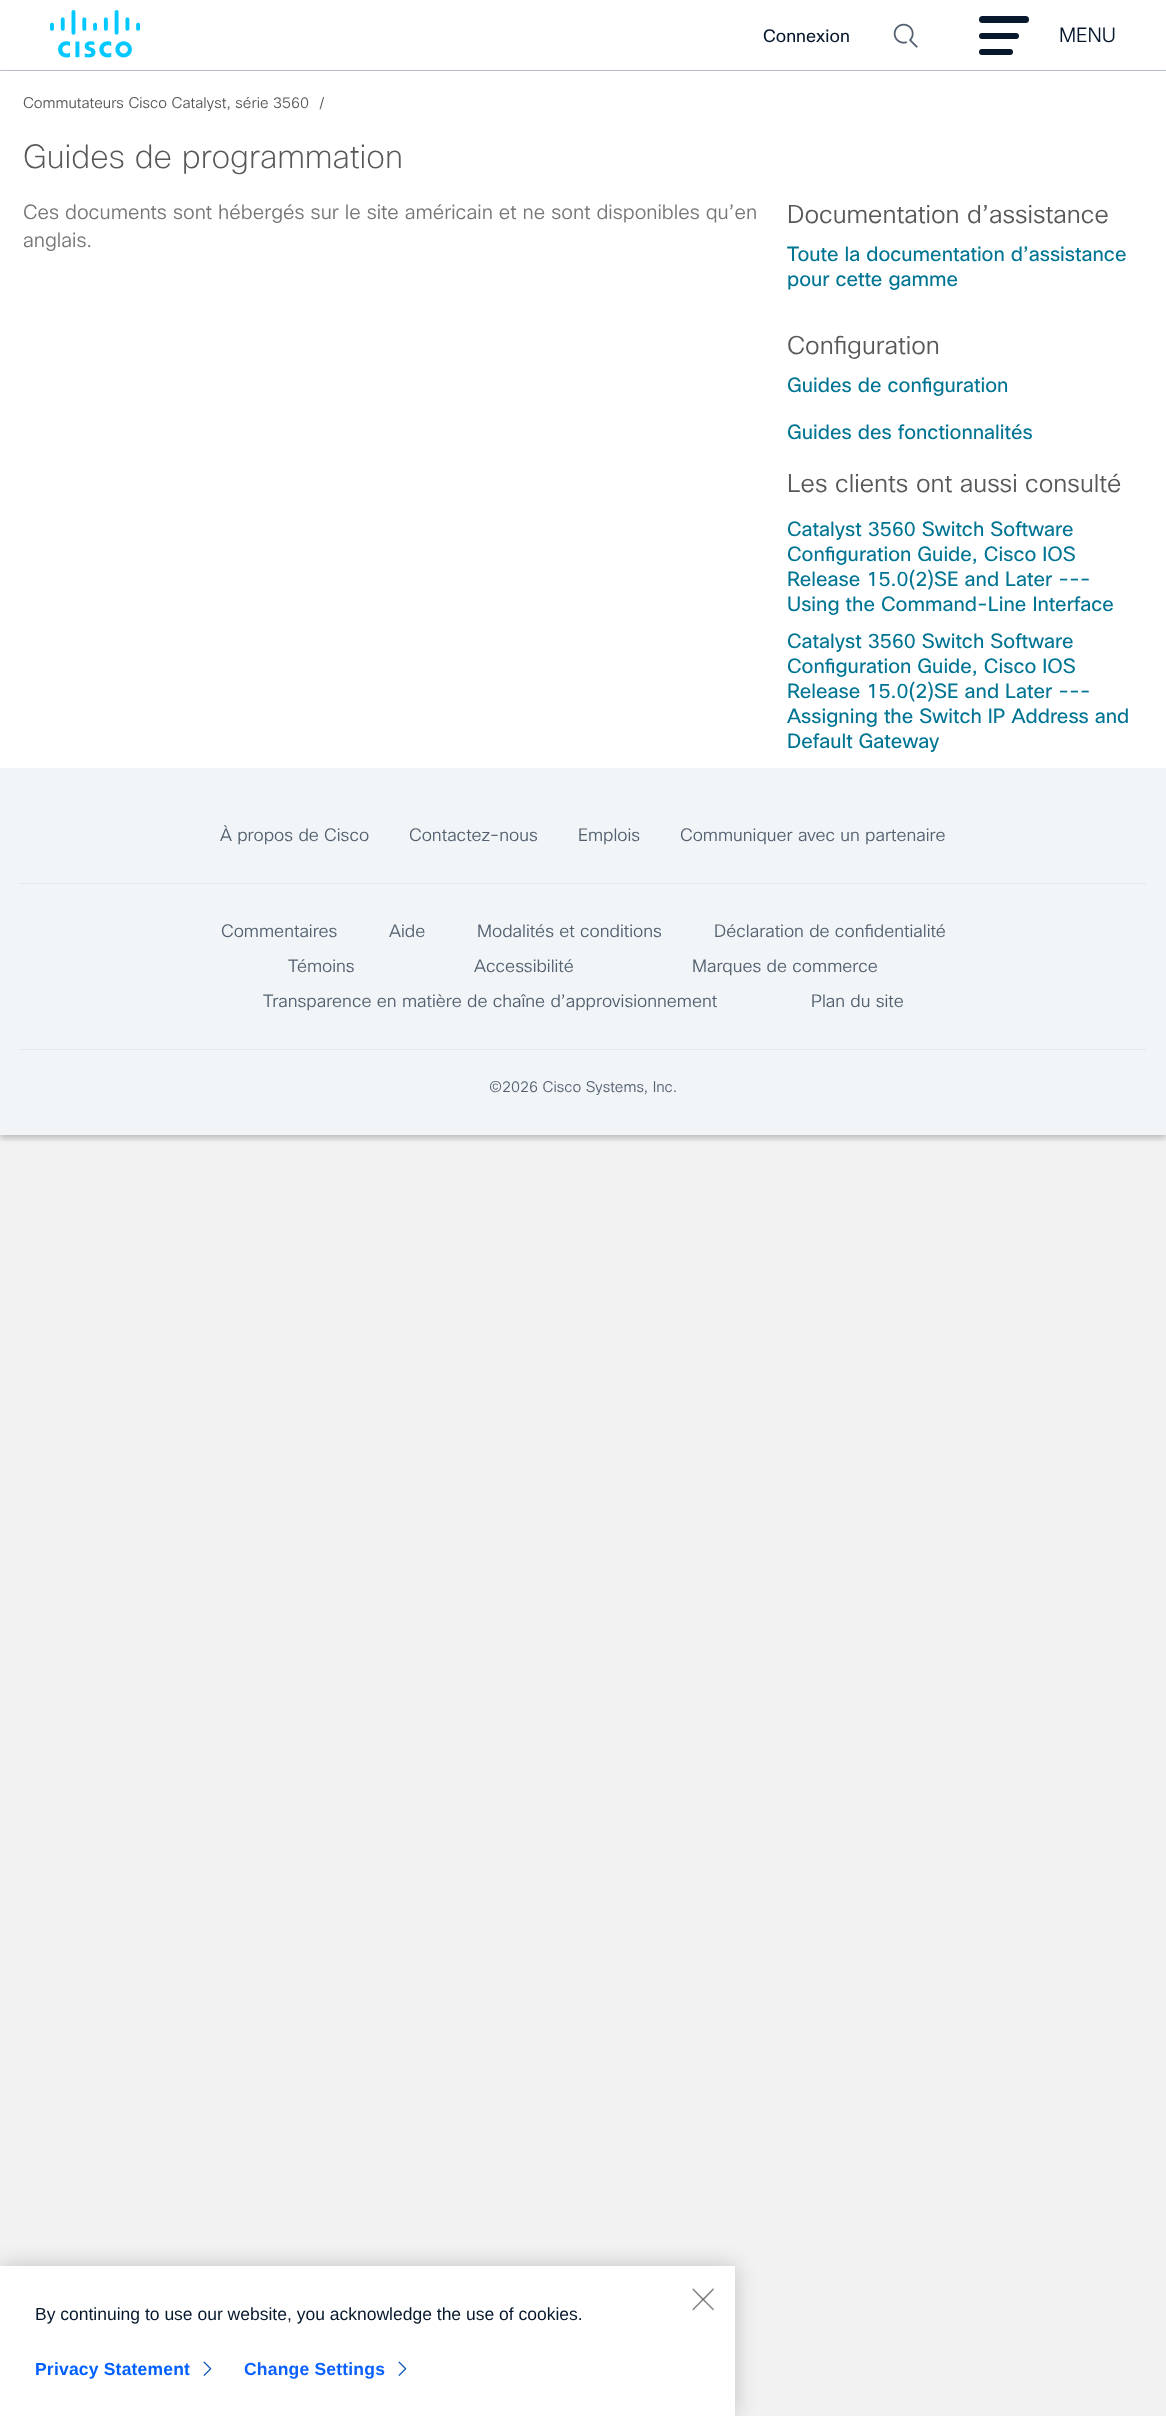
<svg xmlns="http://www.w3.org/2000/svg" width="1166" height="2416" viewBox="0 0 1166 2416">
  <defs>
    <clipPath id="clip1"><rect x="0" y="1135" width="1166" height="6"/></clipPath>
  </defs>
  <rect width="100%" height="100%" fill="rgb(242,242,242)"/>
  <rect x="0" y="0" width="1166" height="70" fill="rgb(255,255,255)"/>
  <rect x="0" y="70" width="1166" height="1" fill="rgb(185,193,201)"/>
  <image x="50" y="10" width="90" height="48" href="pic1.png"/>
  <text x="763" y="42" font-family="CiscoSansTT" font-size="17.5" fill="rgb(7,24,45)">Connexion</text>
  <image x="893" y="23" width="25" height="25" href="pic2.png"/>
  <rect x="979" y="16" width="50" height="7" rx="3.5" fill="rgb(7,24,45)"/>
  <rect x="979" y="33" width="40" height="6" rx="3" fill="rgb(7,24,45)"/>
  <rect x="979" y="49" width="34" height="6" rx="3" fill="rgb(7,24,45)"/>
  <text x="1059" y="42" font-family="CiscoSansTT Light" font-size="20" font-weight="300" fill="rgb(7,24,45)">MENU</text>
  <rect x="0" y="74" width="1166" height="1064" fill="rgba(0,0,0,0.12)" filter="blur(3px)"/>
  <rect x="0" y="71" width="1166" height="697" fill="rgb(255,255,255)"/>
  <g font-family="CiscoSansTT Light" font-size="15" font-weight="300" fill="rgb(88,88,91)">
    <text x="23" y="108">Commutateurs Cisco Catalyst, série 3560</text>
    <text x="319" y="108">/</text>
  </g>
  <text x="23" y="168" font-family="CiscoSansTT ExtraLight" font-size="32.5" font-weight="200" fill="rgb(88,88,91)">Guides de programmation</text>
  <g font-family="CiscoSansTT Light" font-size="20" font-weight="300" fill="rgb(118,118,118)">
    <text>
      <tspan x="23" y="219">Ces documents sont hébergés sur le site américain et ne sont disponibles qu’en</tspan>
      <tspan x="23" y="247">anglais.</tspan>
    </text>
  </g>
  <text x="787" y="223" font-family="CiscoSansTT Light" font-size="25" font-weight="300" fill="rgb(88,88,91)">Documentation d’assistance</text>
  <g font-family="CiscoSansTT" font-size="20" fill="rgb(0,116,147)">
    <text>
      <tspan x="787" y="261">Toute la documentation d’assistance</tspan>
      <tspan x="787" y="286">pour cette gamme</tspan>
    </text>
  </g>
  <text x="787" y="354" font-family="CiscoSansTT Light" font-size="25" font-weight="300" fill="rgb(88,88,91)">Configuration</text>
  <g font-family="CiscoSansTT" font-size="20" fill="rgb(0,116,147)">
    <text x="787" y="392">Guides de configuration</text>
    <text x="787" y="439">Guides des fonctionnalités</text>
  </g>
  <text x="787" y="492" font-family="CiscoSansTT Light" font-size="25" font-weight="300" fill="rgb(88,88,91)">Les clients ont aussi consulté</text>
  <g font-family="CiscoSansTT" font-size="20" fill="rgb(0,116,147)">
    <text>
      <tspan x="787" y="536">Catalyst 3560 Switch Software</tspan>
      <tspan x="787" y="561">Configuration Guide, Cisco IOS</tspan>
      <tspan x="787" y="586">Release 15.0(2)SE and Later ---</tspan>
      <tspan x="787" y="611">Using the Command-Line Interface</tspan>
      <tspan x="787" y="648">Catalyst 3560 Switch Software</tspan>
      <tspan x="787" y="673">Configuration Guide, Cisco IOS</tspan>
      <tspan x="787" y="698">Release 15.0(2)SE and Later ---</tspan>
      <tspan x="787" y="723">Assigning the Switch IP Address and</tspan>
      <tspan x="787" y="748">Default Gateway</tspan>
    </text>
  </g>
  <rect x="0" y="768" width="1166" height="367" fill="rgb(242,245,247)"/>
  <g clip-path="url(#clip1)">
    <rect x="0" y="770" width="1166" height="368" fill="rgba(0,0,0,0.12)" filter="blur(3px)"/>
  </g>
  <g font-family="CiscoSansTT Light" font-size="17.5" font-weight="300" fill="rgb(83,96,112)">
    <text x="220" y="841">À propos de Cisco</text>
    <text x="409" y="841">Contactez-nous</text>
    <text x="578" y="841">Emplois</text>
    <text x="680" y="841">Communiquer avec un partenaire</text>
  </g>
  <rect x="20" y="883" width="1126" height="1" fill="rgb(230,231,232)"/>
  <g font-family="CiscoSansTT Light" font-size="17.5" font-weight="300" fill="rgb(83,96,112)">
    <text x="221" y="937">Commentaires</text>
    <text x="389" y="937">Aide</text>
    <text x="477" y="937">Modalités et conditions</text>
    <text x="714" y="937">Déclaration de confidentialité</text>
    <text x="288" y="972">Témoins</text>
    <text x="474" y="972">Accessibilité</text>
    <text x="692" y="972">Marques de commerce</text>
    <text x="263" y="1007">Transparence en matière de chaîne d’approvisionnement</text>
    <text x="811" y="1007">Plan du site</text>
  </g>
  <rect x="20" y="1049" width="1126" height="1" fill="rgb(230,231,232)"/>
  <text x="489" y="1092" font-family="CiscoSansTT Light" font-size="15" font-weight="300" fill="rgb(83,96,112)">©2026 Cisco Systems, Inc.</text>
  <rect x="0" y="2266" width="735" height="150" fill="rgba(0,0,0,0.2)" filter="blur(11px)"/>
  <rect x="0" y="2266" width="735" height="150" fill="rgb(255,255,255)"/>
  <image x="692" y="2288" width="22" height="23" href="pic3.png"/>
  <text x="35" y="2320" font-family="Liberation Sans" font-size="17.5" fill="rgb(7,24,45)">By continuing to use our website, you acknowledge the use of cookies.</text>
  <text x="35" y="2375" font-family="Liberation Sans" font-size="17.5" font-weight="bold" letter-spacing="0.2" fill="rgb(0,96,255)">Privacy Statement</text>
  <image x="203" y="2361" width="9" height="15" href="pic4.png"/>
  <text x="244" y="2375" font-family="Liberation Sans" font-size="17.5" font-weight="bold" letter-spacing="0.2" fill="rgb(10,96,255)">Change Settings</text>
  <image x="398" y="2361" width="9" height="15" href="pic4.png"/>
</svg>
